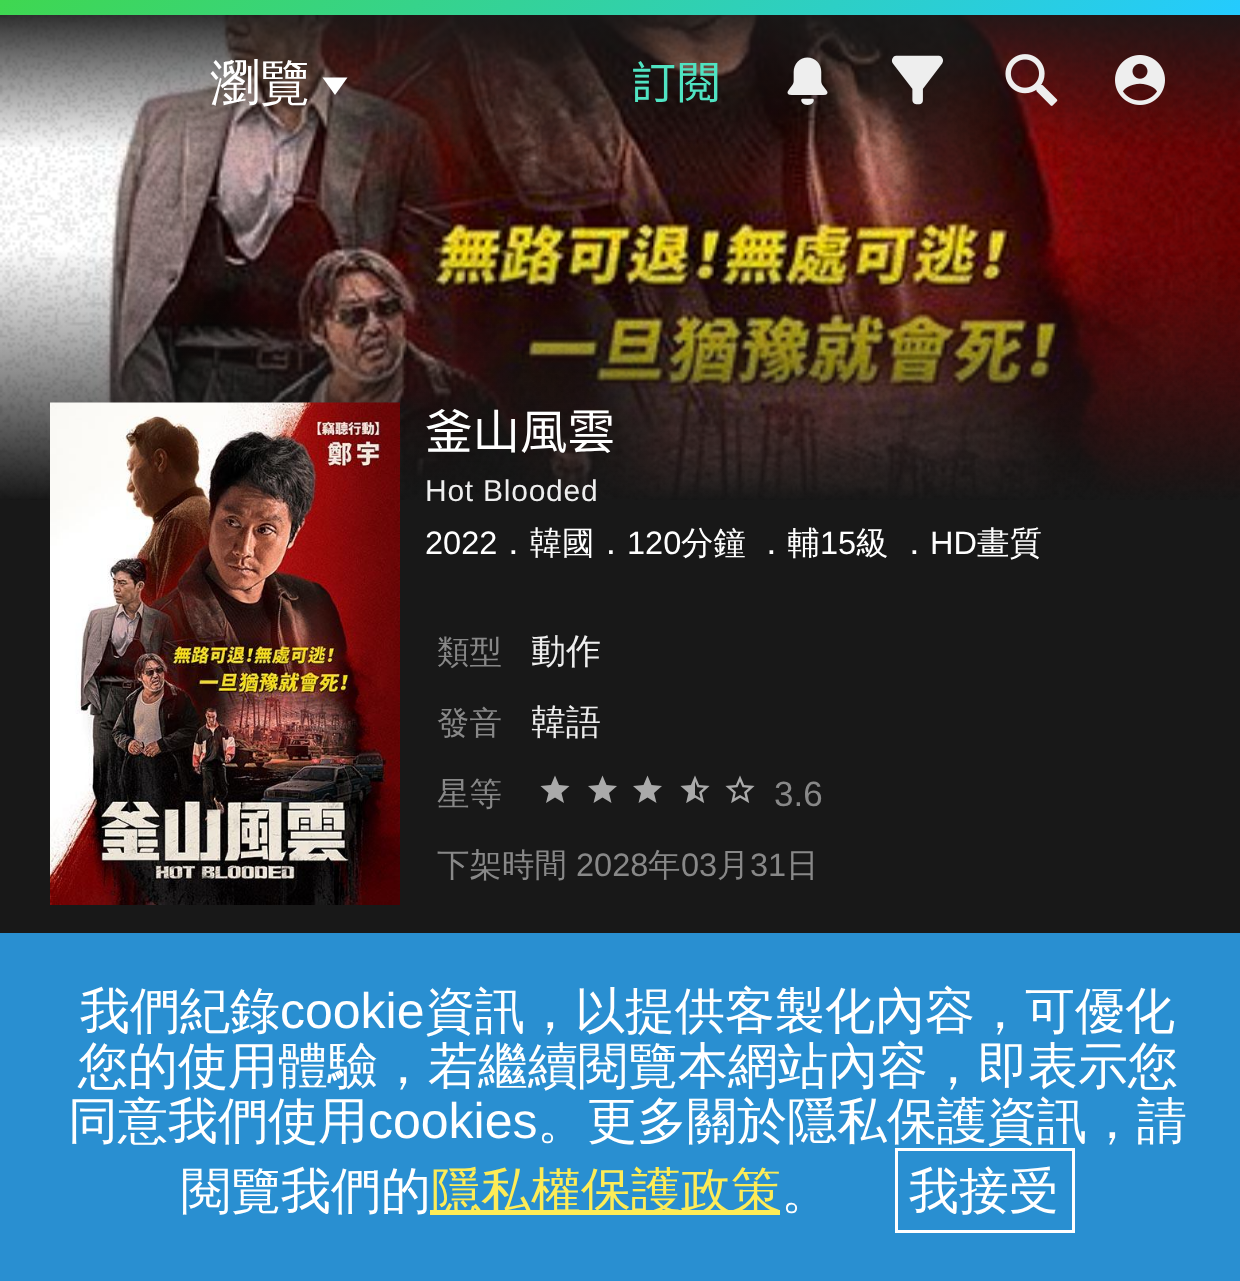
<svg xmlns="http://www.w3.org/2000/svg" width="1240" height="1281" viewBox="0 0 1240 1281">
  <defs>
    <linearGradient id="g1" gradientUnits="userSpaceOnUse" x1="620" y1="0" x2="620" y2="150"><stop offset="0" stop-color="rgb(24,24,24)"/><stop offset="1" stop-color="rgb(24,24,24)" stop-opacity="0"/></linearGradient>
    <linearGradient id="g2" gradientUnits="userSpaceOnUse" x1="303" y1="-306" x2="937" y2="321"><stop offset="0" stop-color="rgb(63,215,80)"/><stop offset="1" stop-color="rgb(36,203,255)"/></linearGradient>
  </defs>
  <rect width="100%" height="100%" fill="rgb(24,24,24)"/>
  <image x="0" y="15" width="1240" height="484" href="pic5.png"/>
  <image x="0" y="15" width="1240" height="485" href="pic6.png"/>
  <rect x="0" y="15" width="1240" height="132" fill="url(#g1)"/>
  <rect x="0" y="0" width="1240" height="15" fill="url(#g2)"/>
  <text x="210" y="100" font-family="WenQuanYi Zen Hei" font-size="50" font-weight="500" fill="rgb(255,255,255)">瀏覽</text>
  <path d="M322.5 77.5H347.5L335 95Z" fill="rgb(255,255,255)"/>
  <text x="631" y="99" font-family="Noto Sans TC" font-size="45" font-weight="100" fill="rgb(80,227,194)">訂閱</text>
  <image x="787" y="57" width="41" height="48" href="pic1.png"/>
  <image x="891" y="55" width="52" height="50" href="pic2.png"/>
  <image x="1005" y="54" width="53" height="52" href="pic3.png"/>
  <image x="1115" y="55" width="50" height="50" href="pic4.png"/>
  <image x="50" y="402" width="350" height="503" href="pic7.png"/>
  <text x="425" y="449" font-family="Noto Sans TC" font-size="47.5" font-weight="100" fill="rgb(255,255,255)">釜山風雲</text>
  <text x="425" y="501" font-family="Liberation Sans" font-size="30" letter-spacing="0.75" fill="rgb(238,238,238)">Hot Blooded</text>
  <text x="425" y="554" font-family="Liberation Sans" font-size="32.5" fill="rgb(255,255,255)">2022</text>
  <text x="497" y="554" font-family="WenQuanYi Zen Hei" font-size="32.5" font-weight="500" fill="rgb(255,255,255)">．韓國．</text>
  <text x="627" y="554" font-family="Liberation Sans" font-size="32.5" fill="rgb(255,255,255)">120</text>
  <g font-family="WenQuanYi Zen Hei" font-size="32.5" font-weight="500" fill="rgb(255,255,255)">
    <text x="681" y="554">分鐘</text>
    <text x="755" y="554">．輔</text>
  </g>
  <text x="820" y="554" font-family="Liberation Sans" font-size="32.5" fill="rgb(255,255,255)">15</text>
  <g font-family="WenQuanYi Zen Hei" font-size="32.5" font-weight="500" fill="rgb(255,255,255)">
    <text x="856" y="554">級</text>
    <text x="898" y="554">．</text>
  </g>
  <text x="930" y="554" font-family="Liberation Sans" font-size="32.5" fill="rgb(255,255,255)">HD</text>
  <text x="977" y="554" font-family="WenQuanYi Zen Hei" font-size="32.5" font-weight="500" fill="rgb(255,255,255)">畫質</text>
  <text x="437" y="663" font-family="WenQuanYi Zen Hei" font-size="32.5" font-weight="500" fill="rgb(136,136,136)">類型</text>
  <text x="531" y="663" font-family="WenQuanYi Zen Hei" font-size="35" font-weight="500" fill="rgb(238,238,238)">動作</text>
  <text x="437" y="734" font-family="WenQuanYi Zen Hei" font-size="32.5" font-weight="500" fill="rgb(136,136,136)">發音</text>
  <text x="531" y="734" font-family="WenQuanYi Zen Hei" font-size="35" font-weight="500" fill="rgb(238,238,238)">韓語</text>
  <text x="437" y="805" font-family="WenQuanYi Zen Hei" font-size="32.5" font-weight="500" fill="rgb(136,136,136)">星等</text>
  <path d="M555 797.5L564 803L561.5 793L569.5 786L559 785L555 775.5L551 785L540.5 786L548.5 793L546 803Z" fill="rgb(170,170,170)"/>
  <path d="M602.5 797.5L611.5 803L609 793L617 786L606.5 785L602.5 775.5L598.5 785L588 786L596 793L593.5 803Z" fill="rgb(170,170,170)"/>
  <path d="M647.5 797.5L656.5 803L654 793L662 786L651.5 785L647.5 775.5L643.5 785L633 786L641 793L638.5 803Z" fill="rgb(170,170,170)"/>
  <image x="680" y="775" width="30" height="28" href="pic8.png"/>
  <image x="725" y="775" width="30" height="28" href="pic9.png"/>
  <text x="774" y="806" font-family="Liberation Sans" font-size="35" fill="rgb(136,136,136)">3.6</text>
  <text x="437" y="876" font-family="WenQuanYi Zen Hei" font-size="32.5" font-weight="500" fill="rgb(136,136,136)">下架時間</text>
  <text x="576" y="876" font-family="Liberation Sans" font-size="32.5" fill="rgb(136,136,136)">2028</text>
  <text x="648" y="876" font-family="WenQuanYi Zen Hei" font-size="32.5" font-weight="500" fill="rgb(136,136,136)">年</text>
  <text x="681" y="876" font-family="Liberation Sans" font-size="32.5" fill="rgb(136,136,136)">03</text>
  <text x="717" y="876" font-family="WenQuanYi Zen Hei" font-size="32.5" font-weight="500" fill="rgb(136,136,136)">月</text>
  <text x="750" y="876" font-family="Liberation Sans" font-size="32.5" fill="rgb(136,136,136)">31</text>
  <text x="786" y="876" font-family="WenQuanYi Zen Hei" font-size="32.5" font-weight="500" fill="rgb(136,136,136)">日</text>
  <rect x="0" y="933" width="1240" height="348" fill="rgb(41,143,209)"/>
  <text x="80" y="1028" font-family="WenQuanYi Zen Hei" font-size="50" font-weight="500" fill="rgb(255,255,255)">我們紀錄</text>
  <text x="280" y="1028" font-family="Liberation Sans" font-size="50" fill="rgb(255,255,255)">cookie</text>
  <g font-family="WenQuanYi Zen Hei" font-size="50" font-weight="500" fill="rgb(255,255,255)">
    <text x="425" y="1028">資訊，以提供客製化內容，可優化</text>
    <text x="78" y="1083">您的使用體驗，若繼續閱覽本網站內容，即表示您</text>
    <text x="68" y="1138">同意我們使用</text>
  </g>
  <text x="368" y="1138" font-family="Liberation Sans" font-size="50" fill="rgb(255,255,255)">cookies</text>
  <g font-family="WenQuanYi Zen Hei" font-size="50" font-weight="500" fill="rgb(255,255,255)">
    <text x="537" y="1138">。更多關於隱私保護資訊，請</text>
    <text x="181" y="1208">閱覽我們的</text>
  </g>
  <rect x="430" y="1210" width="350" height="5" fill="rgb(253,236,87)"/>
  <text x="431" y="1208" font-family="WenQuanYi Zen Hei" font-size="50" font-weight="500" fill="rgb(253,236,87)">隱私權保護政策</text>
  <text x="781" y="1208" font-family="WenQuanYi Zen Hei" font-size="50" font-weight="500" fill="rgb(255,255,255)">。</text>
  <rect x="896.5" y="1149.5" width="177" height="82" fill="none" stroke="rgb(255,255,255)" stroke-width="3"/>
  <text x="909" y="1208" font-family="WenQuanYi Zen Hei" font-size="50" font-weight="500" fill="rgb(255,255,255)">我接受</text>
</svg>
